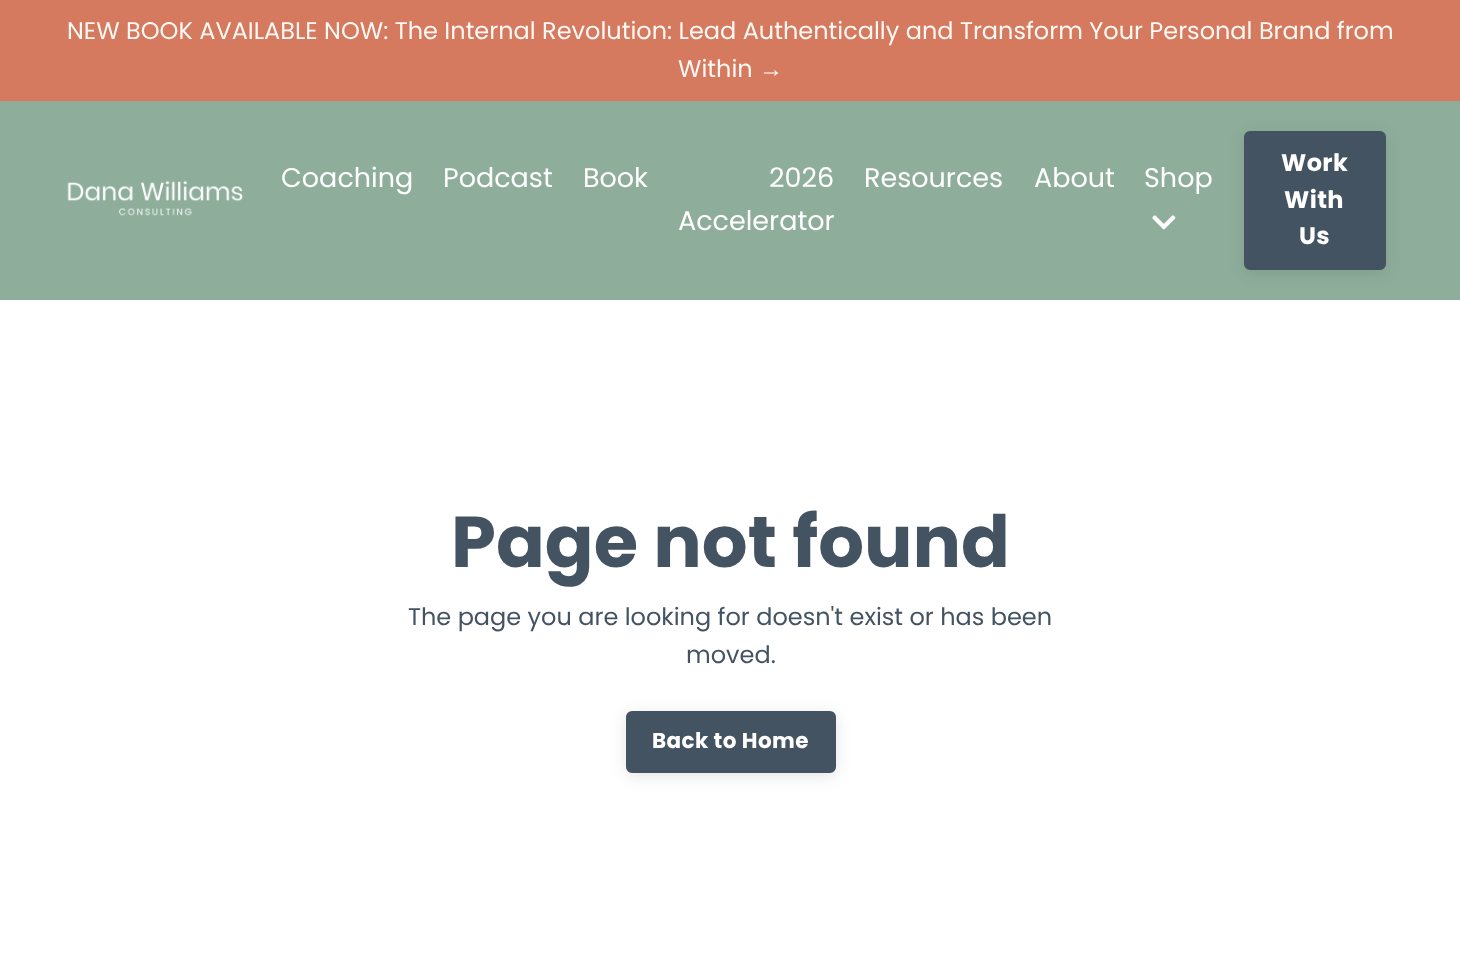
<svg xmlns="http://www.w3.org/2000/svg" width="1460" height="972" viewBox="0 0 1460 972">
  <rect width="100%" height="100%" fill="rgb(255,255,255)"/>
  <rect x="0" y="101" width="1460" height="199" fill="rgb(142,174,155)"/>
  <rect x="0" y="0" width="1460" height="101" fill="rgb(213,121,95)"/>
  <g font-family="Poppins" font-size="24" fill="rgb(252,249,245)">
    <text x="67" y="39">NEW BOOK AVAILABLE NOW: The Internal Revolution: Lead Authentically and Transform Your Personal Brand from</text>
    <text x="678" y="77">Within</text>
  </g>
  <text x="759" y="77" font-family="Liberation Serif" font-size="24" fill="rgb(252,249,245)">→</text>
  <image x="67" y="180" width="176" height="36" href="pic1.png"/>
  <g font-family="Poppins" font-size="27" fill="rgb(255,255,255)">
    <text x="281" y="187">Coaching</text>
    <text x="443" y="187">Podcast</text>
    <text x="583" y="187">Book</text>
    <text x="769" y="187">2026</text>
    <text x="678" y="230">Accelerator</text>
    <text x="864" y="187">Resources</text>
    <text x="1034" y="187">About</text>
    <text x="1144" y="187">Shop</text>
  </g>
  <image x="1152" y="215" width="24" height="15" href="pic2.png"/>
  <rect x="1244" y="134" width="142" height="139" rx="6" fill="rgba(0,0,0,0.1)" filter="blur(7.5px)"/>
  <rect x="1245.5" y="132.5" width="139" height="136" rx="4.5" fill="rgb(68,83,98)" stroke="rgb(68,83,98)" stroke-width="3"/>
  <g font-family="Poppins" font-size="24" font-weight="bold" letter-spacing="0.4" fill="rgb(255,255,255)">
    <text x="1281" y="171">Work</text>
    <text x="1284" y="208">With</text>
    <text x="1299" y="244">Us</text>
  </g>
  <text x="451" y="567" font-family="Poppins" font-size="72" font-weight="bold" fill="rgb(68,83,98)">Page not found</text>
  <g font-family="Poppins" font-size="24" fill="rgb(68,83,98)">
    <text x="408" y="625">The page you are looking for doesn't exist or has been</text>
    <text x="686" y="663">moved.</text>
  </g>
  <rect x="626" y="714" width="210" height="62" rx="6" fill="rgba(0,0,0,0.1)" filter="blur(7.5px)"/>
  <rect x="627.5" y="712.5" width="207" height="59" rx="4.5" fill="rgb(68,83,98)" stroke="rgb(68,83,98)" stroke-width="3"/>
  <text x="652" y="748" font-family="Poppins" font-size="21.5" font-weight="bold" letter-spacing="0.4" fill="rgb(255,255,255)">Back to Home</text>
</svg>
